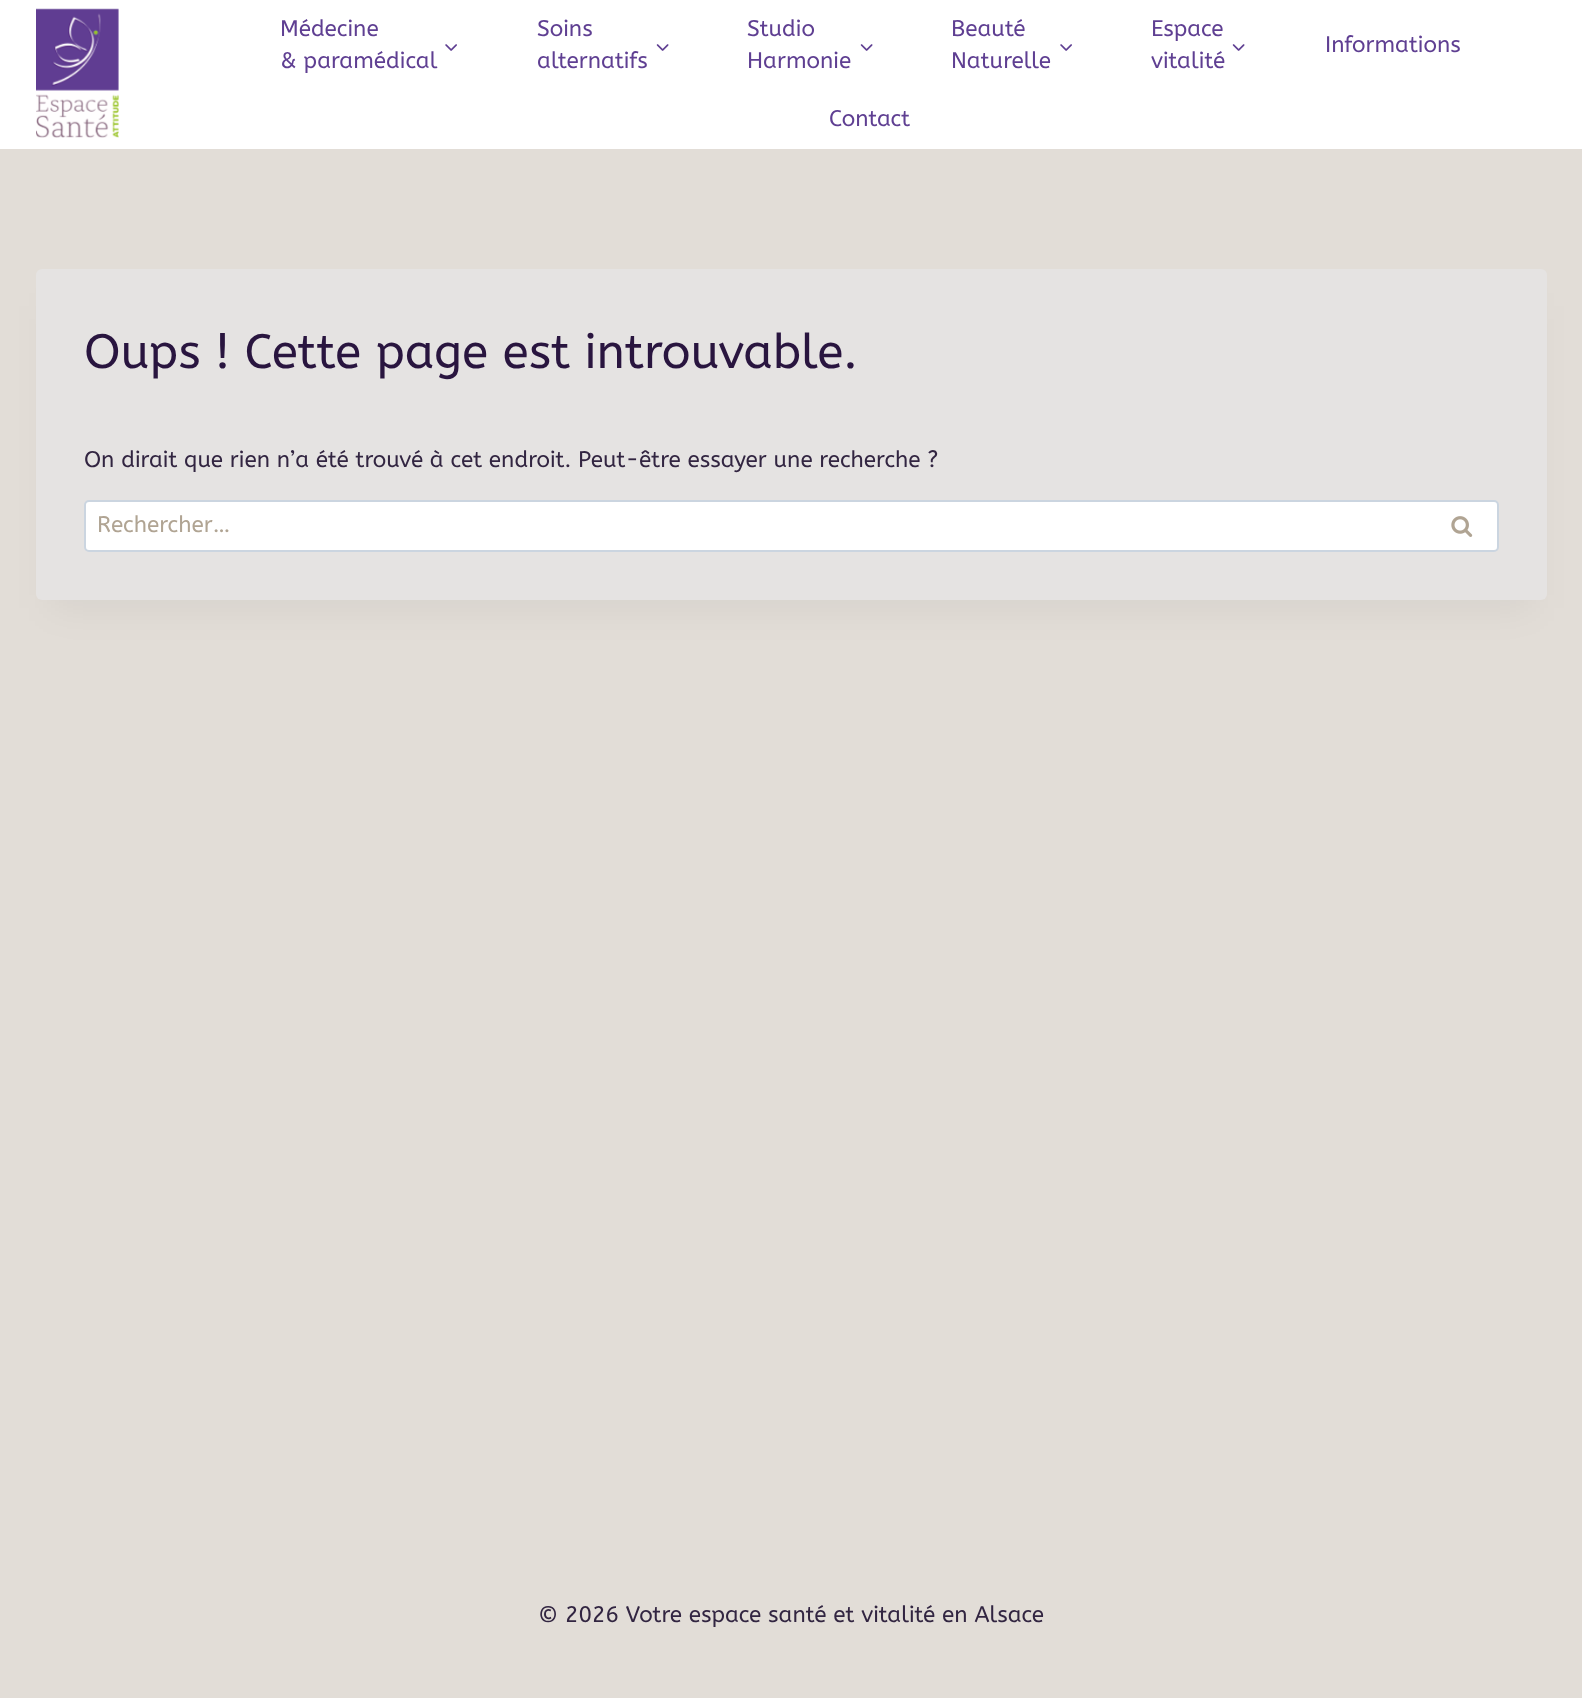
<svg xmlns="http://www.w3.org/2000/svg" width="1582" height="1698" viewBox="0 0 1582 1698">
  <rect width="100%" height="100%" fill="rgb(226,221,215)"/>
  <rect x="0" y="0" width="1582" height="149" fill="rgb(255,255,255)"/>
  <image x="36" y="8" width="83" height="130" href="pic1.png"/>
  <text x="280" y="36" font-family="ABeeZee" font-size="22.5" fill="rgb(95,63,146)">Médecine</text>
  <image x="445" y="44" width="12" height="7" href="pic2.png"/>
  <g font-family="ABeeZee" font-size="22.5" fill="rgb(95,63,146)">
    <text x="280" y="68">&amp; paramédical</text>
    <text x="537" y="36">Soins</text>
  </g>
  <image x="656" y="44" width="13" height="7" href="pic3.png"/>
  <g font-family="ABeeZee" font-size="22.5" fill="rgb(95,63,146)">
    <text x="537" y="68">alternatifs</text>
    <text x="747" y="36">Studio</text>
  </g>
  <image x="860" y="44" width="13" height="7" href="pic3.png"/>
  <g font-family="ABeeZee" font-size="22.5" fill="rgb(95,63,146)">
    <text x="747" y="68">Harmonie</text>
    <text x="951" y="36">Beauté</text>
  </g>
  <image x="1060" y="44" width="12" height="7" href="pic2.png"/>
  <g font-family="ABeeZee" font-size="22.5" fill="rgb(95,63,146)">
    <text x="951" y="68">Naturelle</text>
    <text x="1151" y="36">Espace</text>
  </g>
  <image x="1232" y="44" width="13" height="7" href="pic3.png"/>
  <g font-family="ABeeZee" font-size="22.5" fill="rgb(95,63,146)">
    <text x="1151" y="68">vitalité</text>
    <text x="1325" y="52">Informations</text>
    <text x="829" y="126">Contact</text>
  </g>
  <rect x="51" y="306" width="1481" height="302" fill="rgba(0,0,0,0.05)" filter="blur(19px)"/>
  <rect x="36" y="269" width="1511" height="331" rx="6" fill="rgb(229,227,226)"/>
  <text x="84" y="368" font-family="ABeeZee" font-size="48" fill="rgb(41,21,63)">Oups ! Cette page est introuvable.</text>
  <text x="84" y="467" font-family="ABeeZee" font-size="22.5" fill="rgb(50,37,65)">On dirait que rien n’a été trouvé à cet endroit. Peut-être essayer une recherche ?</text>
  <rect x="85" y="501" width="1413" height="50" rx="4" fill="rgb(255,255,255)" stroke="rgb(203,213,224)" stroke-width="2"/>
  <text x="97" y="532" font-family="ABeeZee" font-size="22.5" fill="rgb(176,164,147)">Rechercher…</text>
  <image x="1451" y="516" width="22" height="21" href="pic4.png"/>
  <text x="538" y="1622" font-family="ABeeZee" font-size="22.5" fill="rgb(50,37,65)">© 2026 Votre espace santé et vitalité en Alsace</text>
</svg>
